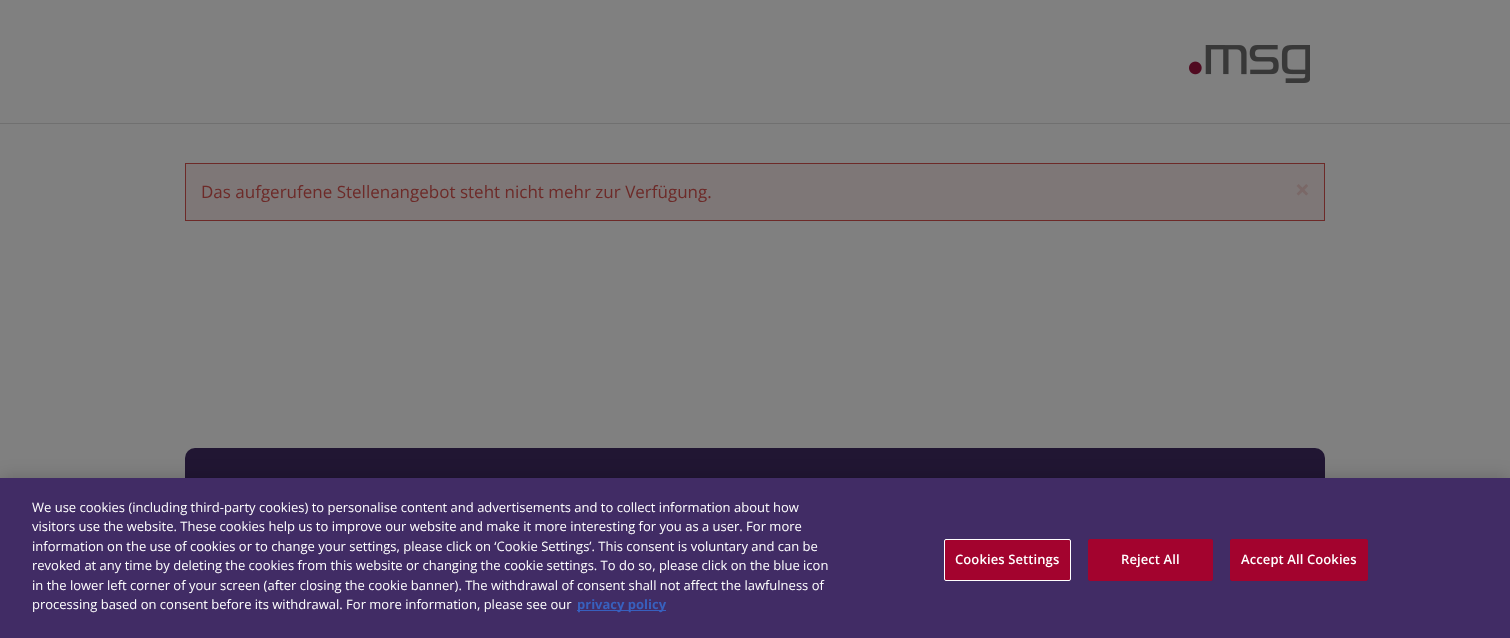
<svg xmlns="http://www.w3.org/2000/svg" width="1510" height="638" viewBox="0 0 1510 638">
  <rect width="100%" height="100%" fill="rgb(128,128,128)"/>
  <rect x="0" y="123" width="1510" height="1" fill="rgb(112,112,112)"/>
  <image x="1189" y="45" width="121" height="38" href="pic1.png"/>
  <rect x="185.5" y="163.5" width="1139" height="57" fill="rgb(126,119,119)" stroke="rgb(109,42,40)"/>
  <text x="201" y="198" font-family="Open Sans" font-size="17" fill="rgb(109,42,40)">Das aufgerufene Stellenangebot steht nicht mehr zur Verfügung.</text>
  <text x="1295" y="199" font-family="Open Sans" font-size="26" font-weight="bold" fill="rgb(122,104,103)">×</text>
  <rect x="185" y="448" width="1140" height="175" rx="10" fill="rgb(33,22,51)"/>
  <rect x="0" y="478" width="1510" height="160" fill="rgba(0,0,0,0.2)" filter="blur(9px)"/>
  <rect x="0" y="478" width="1510" height="160" fill="rgb(65,44,101)"/>
  <g font-family="Open Sans" font-size="13" fill="rgb(255,255,255)">
    <text>
      <tspan x="32" y="512">We use cookies (including third-party cookies) to personalise content and advertisements and to collect information about how</tspan>
      <tspan x="32" y="531">visitors use the website. These cookies help us to improve our website and make it more interesting for you as a user. For more</tspan>
      <tspan x="32" y="551">information on the use of cookies or to change your settings, please click on ‘Cookie Settings’. This consent is voluntary and can be</tspan>
      <tspan x="32" y="570">revoked at any time by deleting the cookies from this website or changing the cookie settings. To do so, please click on the blue icon</tspan>
      <tspan x="32" y="590">in the lower left corner of your screen (after closing the cookie banner). The withdrawal of consent shall not affect the lawfulness of</tspan>
      <tspan x="32" y="609">processing based on consent before its withdrawal. For more information, please see our</tspan>
    </text>
  </g>
  <rect x="577" y="610" width="89" height="1" fill="rgb(56,96,190)"/>
  <text x="577" y="609" font-family="Open Sans" font-size="13" font-weight="bold" fill="rgb(56,96,190)">privacy policy</text>
  <rect x="944.5" y="539.5" width="126" height="41" rx="1.5" fill="rgb(163,3,46)" stroke="rgb(255,255,255)"/>
  <text x="955" y="564" font-family="Open Sans" font-size="13" font-weight="600" letter-spacing="0.1" fill="rgb(255,255,255)">Cookies Settings</text>
  <rect x="1088.5" y="539.5" width="124" height="41" rx="1.5" fill="rgb(163,3,46)" stroke="rgb(163,3,46)"/>
  <text x="1121" y="564" font-family="Open Sans" font-size="13" font-weight="600" letter-spacing="0.1" fill="rgb(255,255,255)">Reject All</text>
  <rect x="1230.5" y="539.5" width="137" height="41" rx="1.5" fill="rgb(163,3,46)" stroke="rgb(163,3,46)"/>
  <text x="1241" y="564" font-family="Open Sans" font-size="13" font-weight="600" letter-spacing="0.1" fill="rgb(255,255,255)">Accept All Cookies</text>
</svg>
